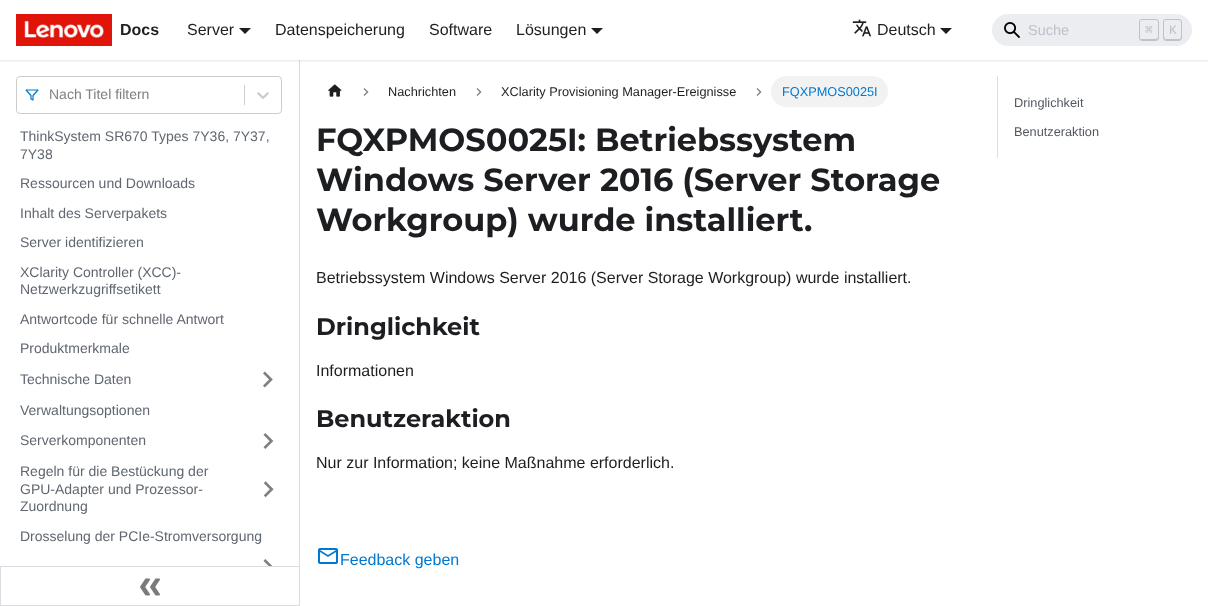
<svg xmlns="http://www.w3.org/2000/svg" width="1208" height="606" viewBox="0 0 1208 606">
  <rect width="100%" height="100%" fill="rgb(255,255,255)"/>
  <rect x="299" y="60" width="1" height="506" fill="rgb(218,221,225)"/>
  <rect x="0" y="1" width="1208" height="60" fill="rgba(0,0,0,0.1)" filter="blur(1px)"/>
  <rect x="0" y="0" width="1208" height="60" fill="rgb(255,255,255)"/>
  <image x="16" y="14" width="96" height="32" href="pic1.png"/>
  <text x="120" y="35" font-family="Liberation Sans" font-size="16" font-weight="bold" fill="rgb(28,30,33)">Docs</text>
  <text x="187" y="35" font-family="Liberation Sans" font-size="16" fill="rgb(28,30,33)">Server</text>
  <path d="M239 28H251L245 34Z" fill="rgb(28,30,33)"/>
  <g font-family="Liberation Sans" font-size="16" fill="rgb(28,30,33)">
    <text x="275" y="35">Datenspeicherung</text>
    <text x="429" y="35">Software</text>
    <text x="516" y="35">Lösungen</text>
  </g>
  <path d="M591 28H603L597 34Z" fill="rgb(28,30,33)"/>
  <image x="852" y="19" width="20" height="18" href="pic2.png"/>
  <text x="877" y="35" font-family="Liberation Sans" font-size="16" fill="rgb(28,30,33)">Deutsch</text>
  <path d="M940 28H952L946 34Z" fill="rgb(28,30,33)"/>
  <rect x="992" y="14" width="200" height="32" rx="16" fill="rgb(235,237,240)"/>
  <image x="1004" y="22" width="16" height="16" href="pic3.png"/>
  <text x="1028" y="35" font-family="Liberation Sans" font-size="14.5" fill="rgb(190,195,201)">Suche</text>
  <path d="M1158 37C1157.5 38.5 1156.5 39 1154 39H1142C1141 39 1140.5 38.5 1140 37.5C1140 40.5 1142.5 40 1144.5 40H1153.5C1156.5 40 1158 40.5 1158 37Z" fill="rgb(190,195,201)"/>
  <rect x="1139.5" y="19.5" width="19" height="21" rx="2.5" fill="none" stroke="rgb(190,195,201)"/>
  <text x="1145" y="34" font-family="DejaVu Sans Mono" font-size="12.75" fill="rgb(190,195,201)">⌘</text>
  <path d="M1181 37C1181 38 1180 39 1179 39H1165L1164 36.5C1164 40 1165 40 1168 40H1177C1180 40 1181 40 1181 37Z" fill="rgb(190,195,201)"/>
  <rect x="1163.5" y="19.5" width="18" height="21" rx="2.5" fill="none" stroke="rgb(190,195,201)"/>
  <text x="1169" y="34" font-family="Liberation Mono" font-size="12.75" fill="rgb(190,195,201)">K</text>
  <rect x="16.5" y="76.5" width="265" height="37" rx="3.5" fill="none" stroke="rgb(204,204,204)"/>
  <path d="M38 90H26L31 95.5V99L33 100V95.5Z" fill="none" stroke="rgb(0,120,208)" stroke-width="1.2" stroke-linecap="round" stroke-linejoin="round"/>
  <text x="49" y="99" font-family="Liberation Sans" font-size="14" fill="rgb(128,128,128)">Nach Titel filtern</text>
  <rect x="244" y="85" width="1" height="20" fill="rgb(204,204,204)"/>
  <image x="257" y="92" width="12" height="7" href="pic4.png"/>
  <g font-family="Liberation Sans" font-size="14" fill="rgb(96,103,112)">
    <text>
      <tspan x="20" y="141">ThinkSystem SR670 Types 7Y36, 7Y37,</tspan>
      <tspan x="20" y="159">7Y38</tspan>
    </text>
    <text x="20" y="188">Ressourcen und Downloads</text>
    <text x="20" y="218">Inhalt des Serverpakets</text>
    <text x="20" y="247">Server identifizieren</text>
    <text>
      <tspan x="20" y="277">XClarity Controller (XCC)-</tspan>
      <tspan x="20" y="294">Netzwerkzugriffsetikett</tspan>
    </text>
    <text x="20" y="324">Antwortcode für schnelle Antwort</text>
    <text x="20" y="353">Produktmerkmale</text>
    <text x="20" y="384">Technische Daten</text>
  </g>
  <image x="263" y="371" width="10" height="17" href="pic5.png"/>
  <g font-family="Liberation Sans" font-size="14" fill="rgb(96,103,112)">
    <text x="20" y="415">Verwaltungsoptionen</text>
    <text x="20" y="445">Serverkomponenten</text>
  </g>
  <image x="263" y="433" width="11" height="16" href="pic6.png"/>
  <g font-family="Liberation Sans" font-size="14" fill="rgb(96,103,112)">
    <text>
      <tspan x="20" y="476">Regeln für die Bestückung der</tspan>
      <tspan x="20" y="494">GPU-Adapter und Prozessor-</tspan>
      <tspan x="20" y="511">Zuordnung</tspan>
    </text>
  </g>
  <image x="263" y="481" width="11" height="17" href="pic7.png"/>
  <text x="20" y="541" font-family="Liberation Sans" font-size="14" fill="rgb(96,103,112)">Drosselung der PCIe-Stromversorgung</text>
  <image x="263" y="559" width="10" height="7" href="pic8.png"/>
  <rect x="0.5" y="566.5" width="299" height="39" fill="none" stroke="rgb(218,221,225)"/>
  <image x="140" y="578" width="20" height="18" href="pic9.png"/>
  <image x="328" y="84" width="14" height="13" href="pic10.png"/>
  <image x="363" y="88" width="6" height="8" href="pic11.png"/>
  <text x="388" y="96" font-family="Liberation Sans" font-size="12.75" fill="rgb(28,30,33)">Nachrichten</text>
  <image x="476" y="88" width="6" height="8" href="pic11.png"/>
  <text x="501" y="96" font-family="Liberation Sans" font-size="12.75" fill="rgb(28,30,33)">XClarity Provisioning Manager-Ereignisse</text>
  <image x="756" y="88" width="6" height="8" href="pic11.png"/>
  <rect x="771" y="76" width="117" height="31" rx="15.5" fill="rgb(242,242,242)"/>
  <text x="782" y="96" font-family="Liberation Sans" font-size="12.75" fill="rgb(0,120,208)">FQXPMOS0025I</text>
  <g font-family="Montserrat" font-size="32" font-weight="bold" fill="rgb(28,30,33)">
    <text>
      <tspan x="316" y="151">FQXPMOS0025I: Betriebssystem</tspan>
      <tspan x="316" y="191">Windows Server 2016 (Server Storage</tspan>
      <tspan x="316" y="231">Workgroup) wurde installiert.</tspan>
    </text>
  </g>
  <text x="316" y="283" font-family="Liberation Sans" font-size="16" fill="rgb(28,30,33)">Betriebssystem Windows Server 2016 (Server Storage Workgroup) wurde installiert.</text>
  <text x="316" y="335" font-family="Montserrat" font-size="24" font-weight="bold" fill="rgb(28,30,33)">Dringlichkeit</text>
  <text x="316" y="376" font-family="Liberation Sans" font-size="16" fill="rgb(28,30,33)">Informationen</text>
  <text x="316" y="427" font-family="Montserrat" font-size="24" font-weight="bold" fill="rgb(28,30,33)">Benutzeraktion</text>
  <text x="316" y="468" font-family="Liberation Sans" font-size="16" fill="rgb(28,30,33)">Nur zur Information; keine Maßnahme erforderlich.</text>
  <image x="318" y="548" width="20" height="16" href="pic12.png"/>
  <text x="340" y="565" font-family="Liberation Sans" font-size="16" fill="rgb(0,120,208)">Feedback geben</text>
  <rect x="997" y="76" width="1" height="82" fill="rgb(218,221,225)"/>
  <g font-family="Liberation Sans" font-size="12.75" fill="rgb(82,88,96)">
    <text x="1014" y="107">Dringlichkeit</text>
    <text x="1014" y="136">Benutzeraktion</text>
  </g>
</svg>
